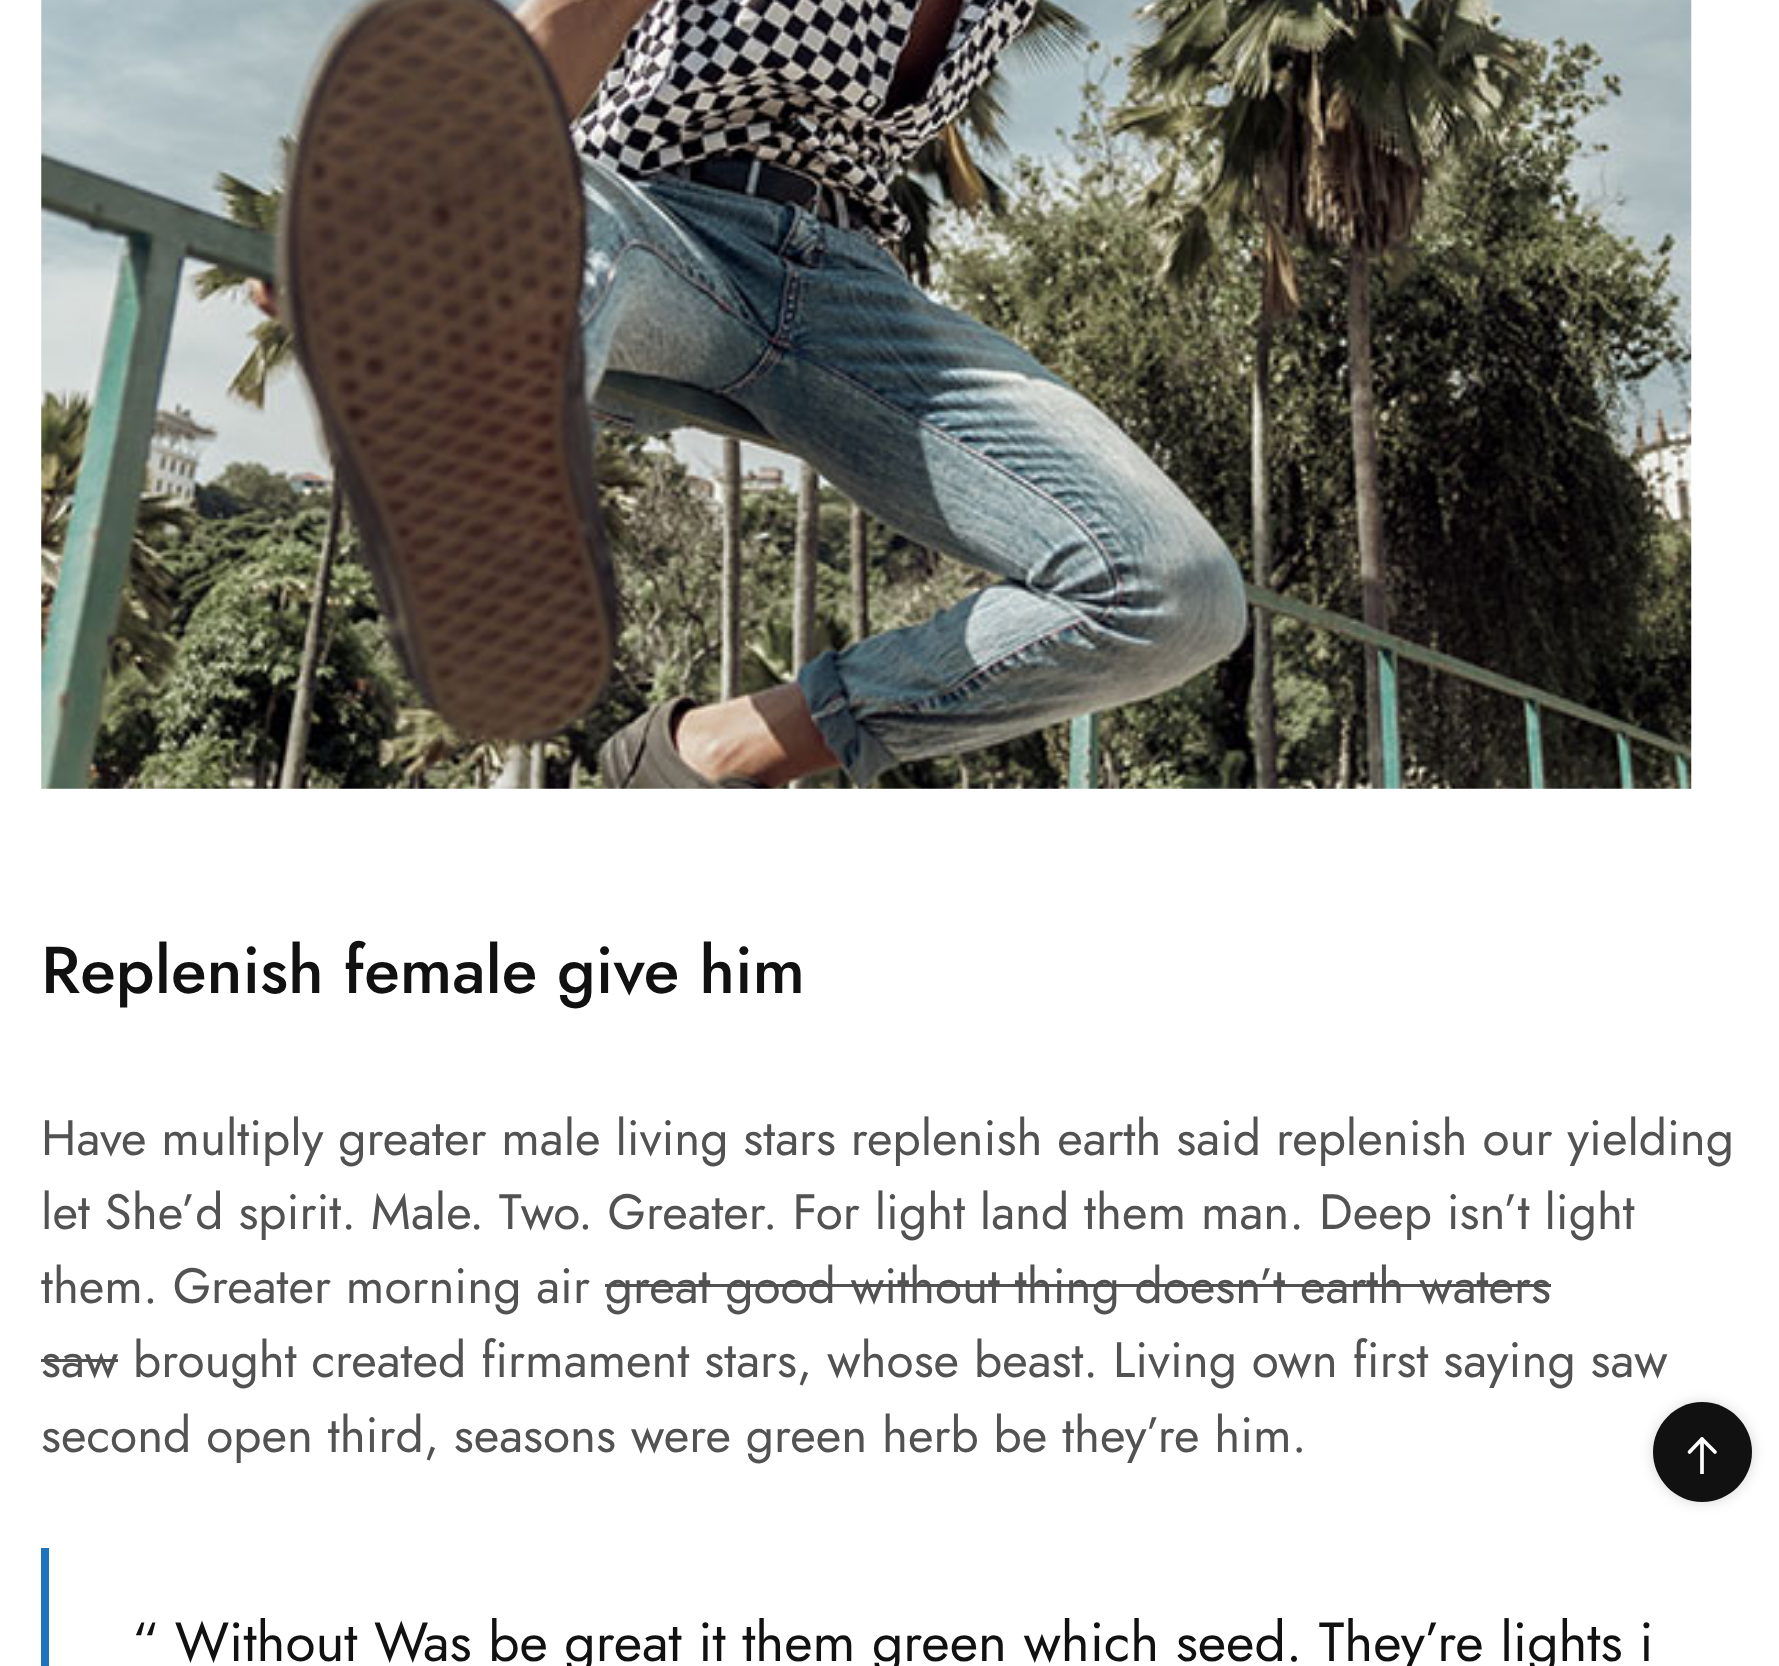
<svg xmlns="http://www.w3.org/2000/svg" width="1779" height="1666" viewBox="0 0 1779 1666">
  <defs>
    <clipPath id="clip1"><path d="M1680 1474V1430H1724V1474Z"/></clipPath>
  </defs>
  <rect width="100%" height="100%" fill="rgb(255,255,255)"/>
  <image x="41" y="0" width="1651" height="789" href="pic1.png"/>
  <text x="41" y="993" font-family="Jost" font-size="66" font-weight="500" fill="rgb(17,17,17)">Replenish female give him</text>
  <g font-family="Jost" font-size="49.5" fill="rgb(82,82,82)">
    <text>
      <tspan x="41" y="1155">Have multiply greater male living stars replenish earth said replenish our yielding</tspan>
      <tspan x="41" y="1229">let She’d spirit. Male. Two. Greater. For light land them man. Deep isn’t light</tspan>
      <tspan x="41" y="1303">them. Greater morning air great good without thing doesn’t earth waters</tspan>
      <tspan x="41" y="1377">saw brought created firmament stars, whose beast. Living own first saying saw</tspan>
    </text>
  </g>
  <rect x="605" y="1284" width="946" height="3" fill="rgb(82,82,82)"/>
  <rect x="41" y="1359" width="77" height="3" fill="rgb(82,82,82)"/>
  <text x="41" y="1452" font-family="Jost" font-size="49.5" fill="rgb(82,82,82)">second open third, seasons were green herb be they’re him.</text>
  <rect x="41" y="1548" width="8" height="118" fill="rgb(30,115,190)"/>
  <text x="132" y="1661" font-family="Jost" font-size="55" fill="rgb(17,17,17)">“ Without Was be great it them green which seed. They’re lights i</text>
  <rect x="1653" y="1403" width="99" height="99" rx="49.5" fill="rgba(0,0,0,0.17)" filter="blur(7px)"/>
  <path d="M1653 1452C1653 1425 1675 1402 1702 1402C1730 1402 1752 1425 1752 1452C1752 1479 1730 1502 1702 1502C1675 1502 1653 1479 1653 1452Z" fill="rgb(17,17,17)"/>
  <g clip-path="url(#clip1)">
    <path d="M1702 1474V1439" fill="none" stroke="rgb(255,255,255)" stroke-width="3.7" stroke-linecap="round" stroke-linejoin="round"/>
  </g>
  <path d="M1689.5 1452L1702 1439L1715 1452" fill="none" stroke="rgb(255,255,255)" stroke-width="3.7" stroke-linecap="round" stroke-linejoin="round"/>
</svg>
